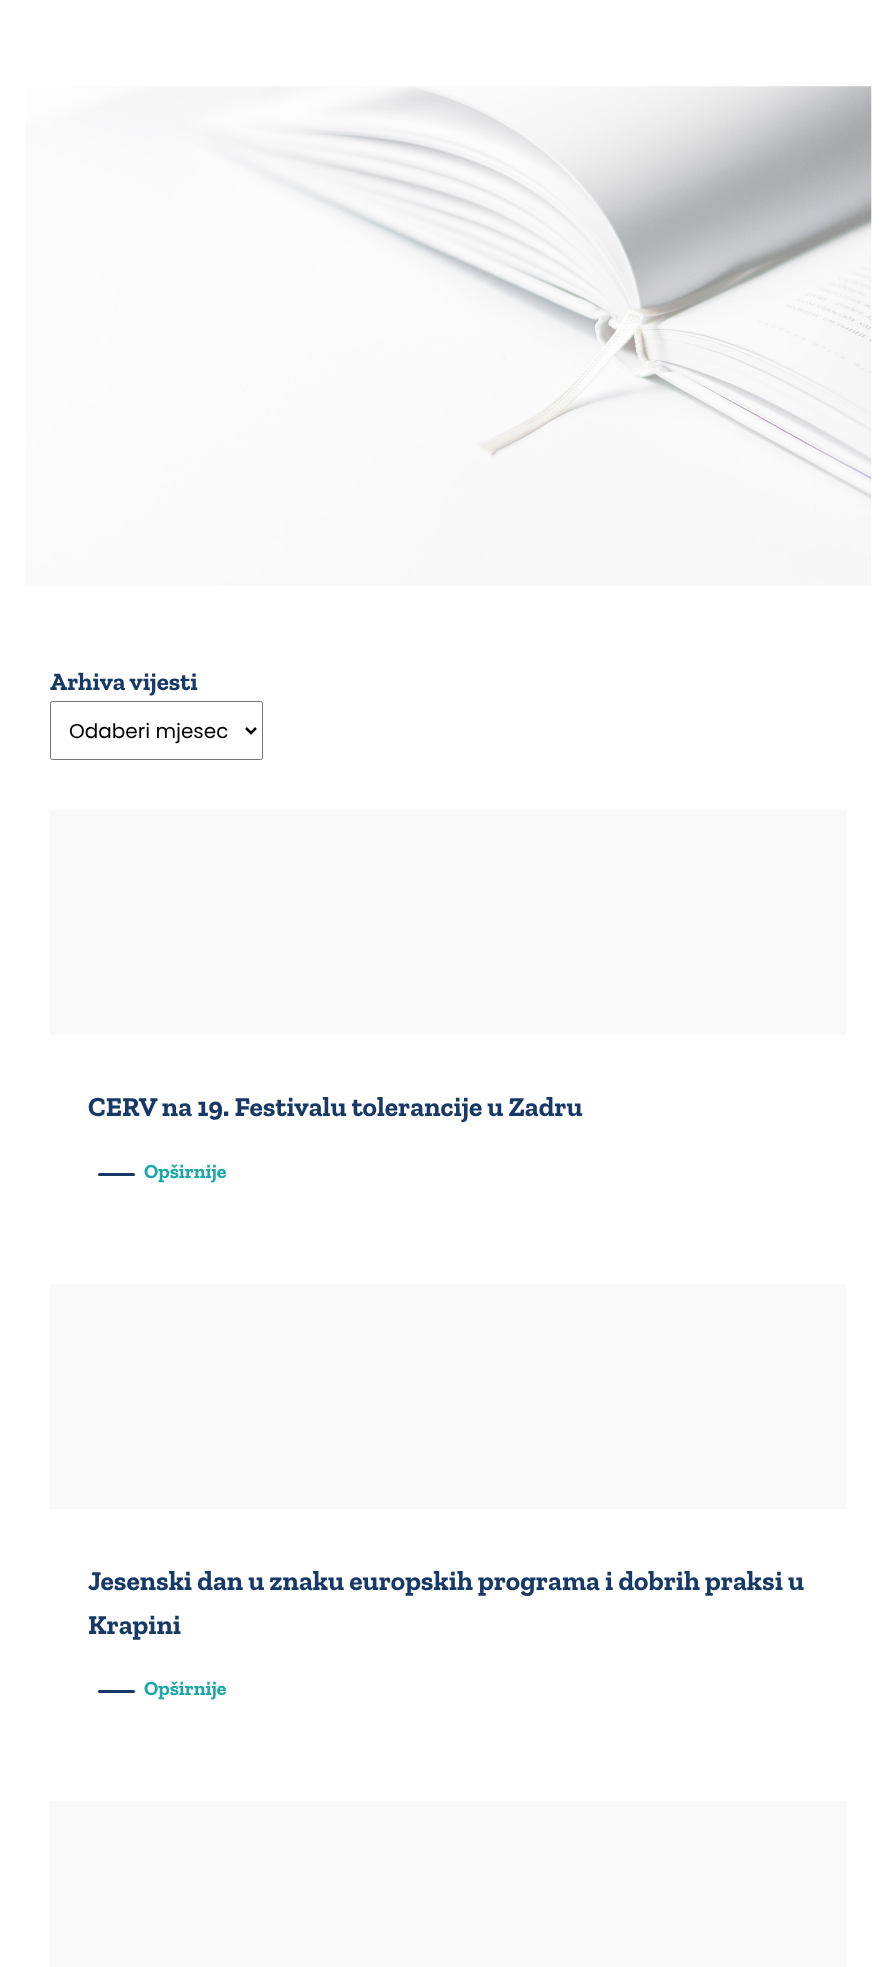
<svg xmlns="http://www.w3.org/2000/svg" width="896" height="1967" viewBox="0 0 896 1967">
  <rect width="100%" height="100%" fill="rgb(255,255,255)"/>
  <image x="25" y="86" width="847" height="500" href="pic1.png"/>
  <text x="50" y="690" font-family="Zilla Slab" font-size="25" font-weight="bold" fill="rgb(22,57,103)">Arhiva vijesti</text>
  <rect x="50.5" y="701.5" width="212" height="58" rx="2" fill="none" stroke="rgb(118,118,118)"/>
  <path d="M246 728L251 733L256 728" fill="none" stroke="rgb(0,0,0)" stroke-width="2.5"/>
  <text x="69" y="738" font-family="Poppins" font-size="20" fill="rgb(0,0,0)">Odaberi mjesec</text>
  <rect x="50" y="810" width="796" height="225" fill="rgb(249,249,249)"/>
  <text x="88" y="1116" font-family="Zilla Slab" font-size="27.5" font-weight="bold" fill="rgb(22,57,103)">CERV na 19. Festivalu tolerancije u Zadru</text>
  <rect x="98" y="1173" width="37" height="3" rx="1.5" fill="rgb(22,57,103)"/>
  <text x="144" y="1178" font-family="Zilla Slab" font-size="20" font-weight="bold" fill="rgb(31,166,167)">Opširnije</text>
  <rect x="50" y="1284" width="796" height="225" fill="rgb(249,249,249)"/>
  <g font-family="Zilla Slab" font-size="27.5" font-weight="bold" fill="rgb(22,57,103)">
    <text>
      <tspan x="88" y="1590">Jesenski dan u znaku europskih programa i dobrih praksi u</tspan>
      <tspan x="88" y="1634">Krapini</tspan>
    </text>
  </g>
  <rect x="98" y="1690" width="37" height="3" rx="1.5" fill="rgb(22,57,103)"/>
  <text x="144" y="1695" font-family="Zilla Slab" font-size="20" font-weight="bold" fill="rgb(31,166,167)">Opširnije</text>
  <rect x="50" y="1801" width="796" height="166" fill="rgb(249,249,249)"/>
</svg>
